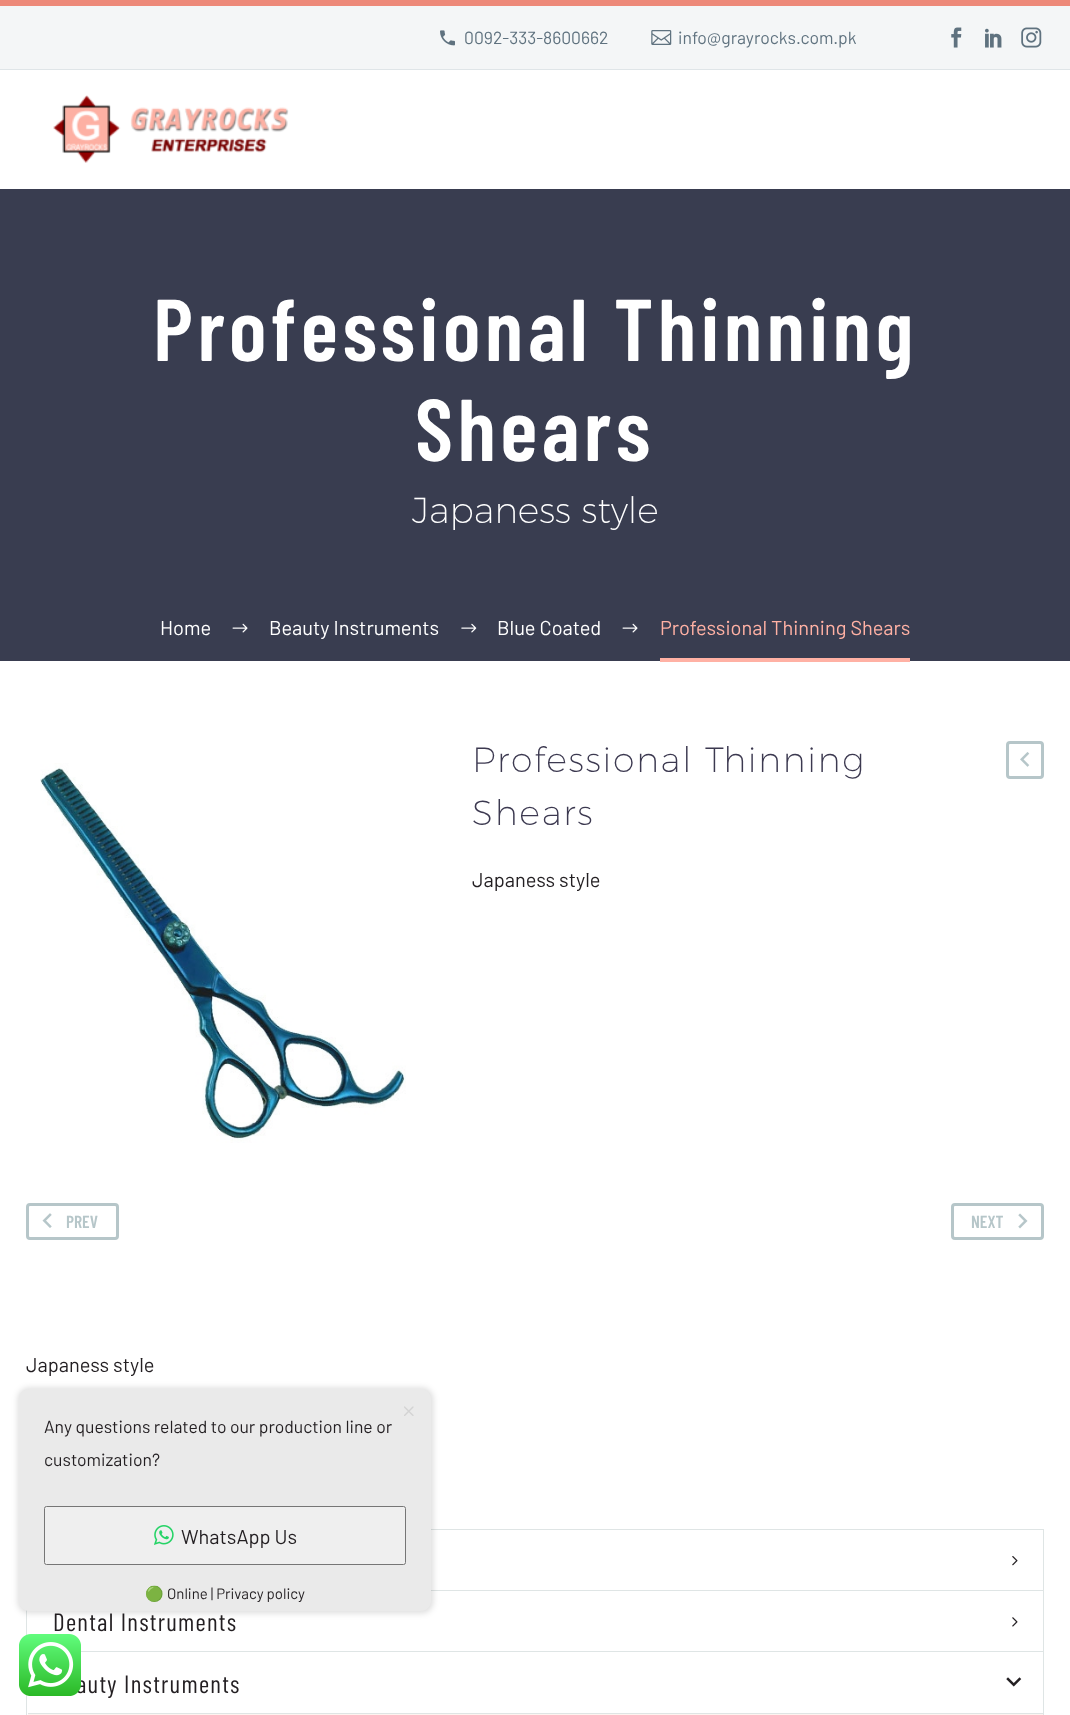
<svg xmlns="http://www.w3.org/2000/svg" width="1070" height="1715" viewBox="0 0 1070 1715">
  <rect width="100%" height="100%" fill="rgb(255,255,255)"/>
  <rect x="0" y="6" width="1070" height="63" fill="rgb(244,246,247)"/>
  <rect x="0" y="0" width="1070" height="6" fill="rgb(237,137,121)"/>
  <rect x="0" y="69" width="1070" height="1" fill="rgb(223,229,232)"/>
  <image x="440" y="30" width="15" height="16" href="pic1.png"/>
  <text x="464" y="44" font-family="Barlow" font-size="17.5" fill="rgb(95,114,127)">0092-333-8600662</text>
  <image x="651" y="30" width="21" height="15" href="pic2.png"/>
  <text x="678" y="44" font-family="Barlow" font-size="17.5" fill="rgb(95,114,127)">info@grayrocks.com.pk</text>
  <image x="951" y="27" width="11" height="21" href="pic3.png"/>
  <image x="985" y="28" width="17" height="20" href="pic4.png"/>
  <image x="1021" y="27" width="21" height="21" href="pic5.png"/>
  <image x="53" y="95" width="236" height="68" href="pic6.png"/>
  <rect x="0" y="189" width="1070" height="472" fill="rgb(57,61,80)"/>
  <g font-family="Barlow Condensed" font-size="87.5" font-weight="600" letter-spacing="4.4" fill="rgb(255,255,255)">
    <text x="153" y="361">Professional Thinning</text>
    <text x="415" y="461">Shears</text>
  </g>
  <text x="412" y="523" font-family="Montserrat" font-size="36.25" font-weight="200" fill="rgb(255,255,255)">Japaness style</text>
  <text x="160" y="635" font-family="Barlow" font-size="20" fill="rgb(255,255,255)">Home</text>
  <image x="232" y="623" width="16" height="10" href="pic7.png"/>
  <text x="269" y="635" font-family="Barlow" font-size="20" fill="rgb(255,255,255)">Beauty Instruments</text>
  <image x="461" y="623" width="16" height="10" href="pic8.png"/>
  <text x="497" y="635" font-family="Barlow" font-size="20" fill="rgb(255,255,255)">Blue Coated</text>
  <image x="622" y="623" width="16" height="10" href="pic7.png"/>
  <rect x="660" y="658" width="250" height="4" fill="rgb(255,177,164)"/>
  <text x="660" y="635" font-family="Barlow" font-size="20" fill="rgb(255,177,164)">Professional Thinning Shears</text>
  <image x="40" y="763" width="366" height="380" href="pic9.png"/>
  <g font-family="Montserrat" font-size="35" font-weight="200" letter-spacing="1.75" fill="rgb(60,57,80)">
    <text>
      <tspan x="472" y="772">Professional Thinning</tspan>
      <tspan x="472" y="825">Shears</tspan>
    </text>
  </g>
  <rect x="1007.5" y="742.5" width="35" height="35" rx="2.5" fill="none" stroke="rgb(182,198,201)" stroke-width="3"/>
  <image x="1020" y="752" width="10" height="15" href="pic10.png"/>
  <text x="472" y="887" font-family="Barlow" font-size="20" fill="rgb(35,31,34)">Japaness style</text>
  <rect x="27.5" y="1204.5" width="90" height="34" rx="2.5" fill="none" stroke="rgb(182,198,201)" stroke-width="3"/>
  <image x="42" y="1213" width="10" height="15" href="pic11.png"/>
  <text x="66" y="1228" font-family="Barlow Condensed" font-size="17.5" font-weight="600" fill="rgb(182,198,201)">PREV</text>
  <rect x="952.5" y="1204.5" width="90" height="34" rx="2.5" fill="none" stroke="rgb(182,198,201)" stroke-width="3"/>
  <text x="971" y="1228" font-family="Barlow Condensed" font-size="17.5" font-weight="600" fill="rgb(182,198,201)">NEXT</text>
  <image x="1018" y="1213" width="10" height="16" href="pic12.png"/>
  <text x="26" y="1372" font-family="Barlow" font-size="20" fill="rgb(35,31,34)">Japaness style</text>
  <rect x="1043" y="1529" width="1" height="186" fill="rgb(223,229,229)"/>
  <rect x="26" y="1610" width="1" height="105" fill="rgb(223,229,229)"/>
  <rect x="431" y="1529" width="612" height="1" fill="rgb(223,229,229)"/>
  <image x="1012" y="1556" width="6" height="10" href="pic13.png"/>
  <rect x="431" y="1590" width="612" height="1" fill="rgb(223,229,229)"/>
  <text x="53" y="1631" font-family="Barlow Condensed" font-size="25" letter-spacing="1.25" fill="rgb(35,31,34)">Dental Instruments</text>
  <image x="1012" y="1617" width="6" height="10" href="pic14.png"/>
  <rect x="81" y="1651" width="962" height="1" fill="rgb(223,229,229)"/>
  <text x="76" y="1693" font-family="Barlow Condensed" font-size="25" letter-spacing="1.25" fill="rgb(35,31,34)">auty Instruments</text>
  <image x="1006" y="1677" width="16" height="10" href="pic15.png"/>
  <rect x="28" y="1714" width="1015" height="1" fill="rgb(255,243,239)"/>
  <rect x="28" y="1713" width="1015" height="1" fill="rgb(223,229,229)"/>
  <rect x="18" y="1388" width="415" height="225" rx="11" fill="rgba(0,0,0,0.14)" filter="blur(3px)"/>
  <path d="M29 1389H421C426.5 1389 431 1393.5 431 1399V1494H19V1399C19 1393.5 23.5 1389 29 1389Z" fill="rgb(234,234,234)"/>
  <image x="404" y="1406" width="10" height="10" href="pic16.png"/>
  <g font-family="Barlow" font-size="17.5" fill="rgb(35,31,34)">
    <text>
      <tspan x="44" y="1433">Any questions related to our production line or</tspan>
      <tspan x="44" y="1466">customization?</tspan>
    </text>
  </g>
  <rect x="19" y="1494" width="412" height="81" fill="rgb(234,234,234)"/>
  <rect x="44.5" y="1506.5" width="361" height="58" rx="2" fill="rgb(239,239,239)" stroke="rgb(118,118,118)"/>
  <image x="154" y="1525" width="20" height="20" href="pic17.png"/>
  <text x="181" y="1544" font-family="Barlow" font-size="20" fill="rgb(35,31,34)">WhatsApp Us</text>
  <path d="M19 1575H431V1601C431 1606.5 426.5 1611 421 1611H29C23.5 1611 19 1606.5 19 1601Z" fill="rgb(234,234,234)"/>
  <text x="145" y="1599" font-family="Noto Color Emoji" font-size="15" fill="rgb(35,31,34)">🟢</text>
  <text x="167" y="1599" font-family="Barlow" font-size="15" fill="rgb(35,31,34)">Online | Privacy policy</text>
  <image x="19" y="1634" width="62" height="62" href="pic18.png"/>
</svg>
